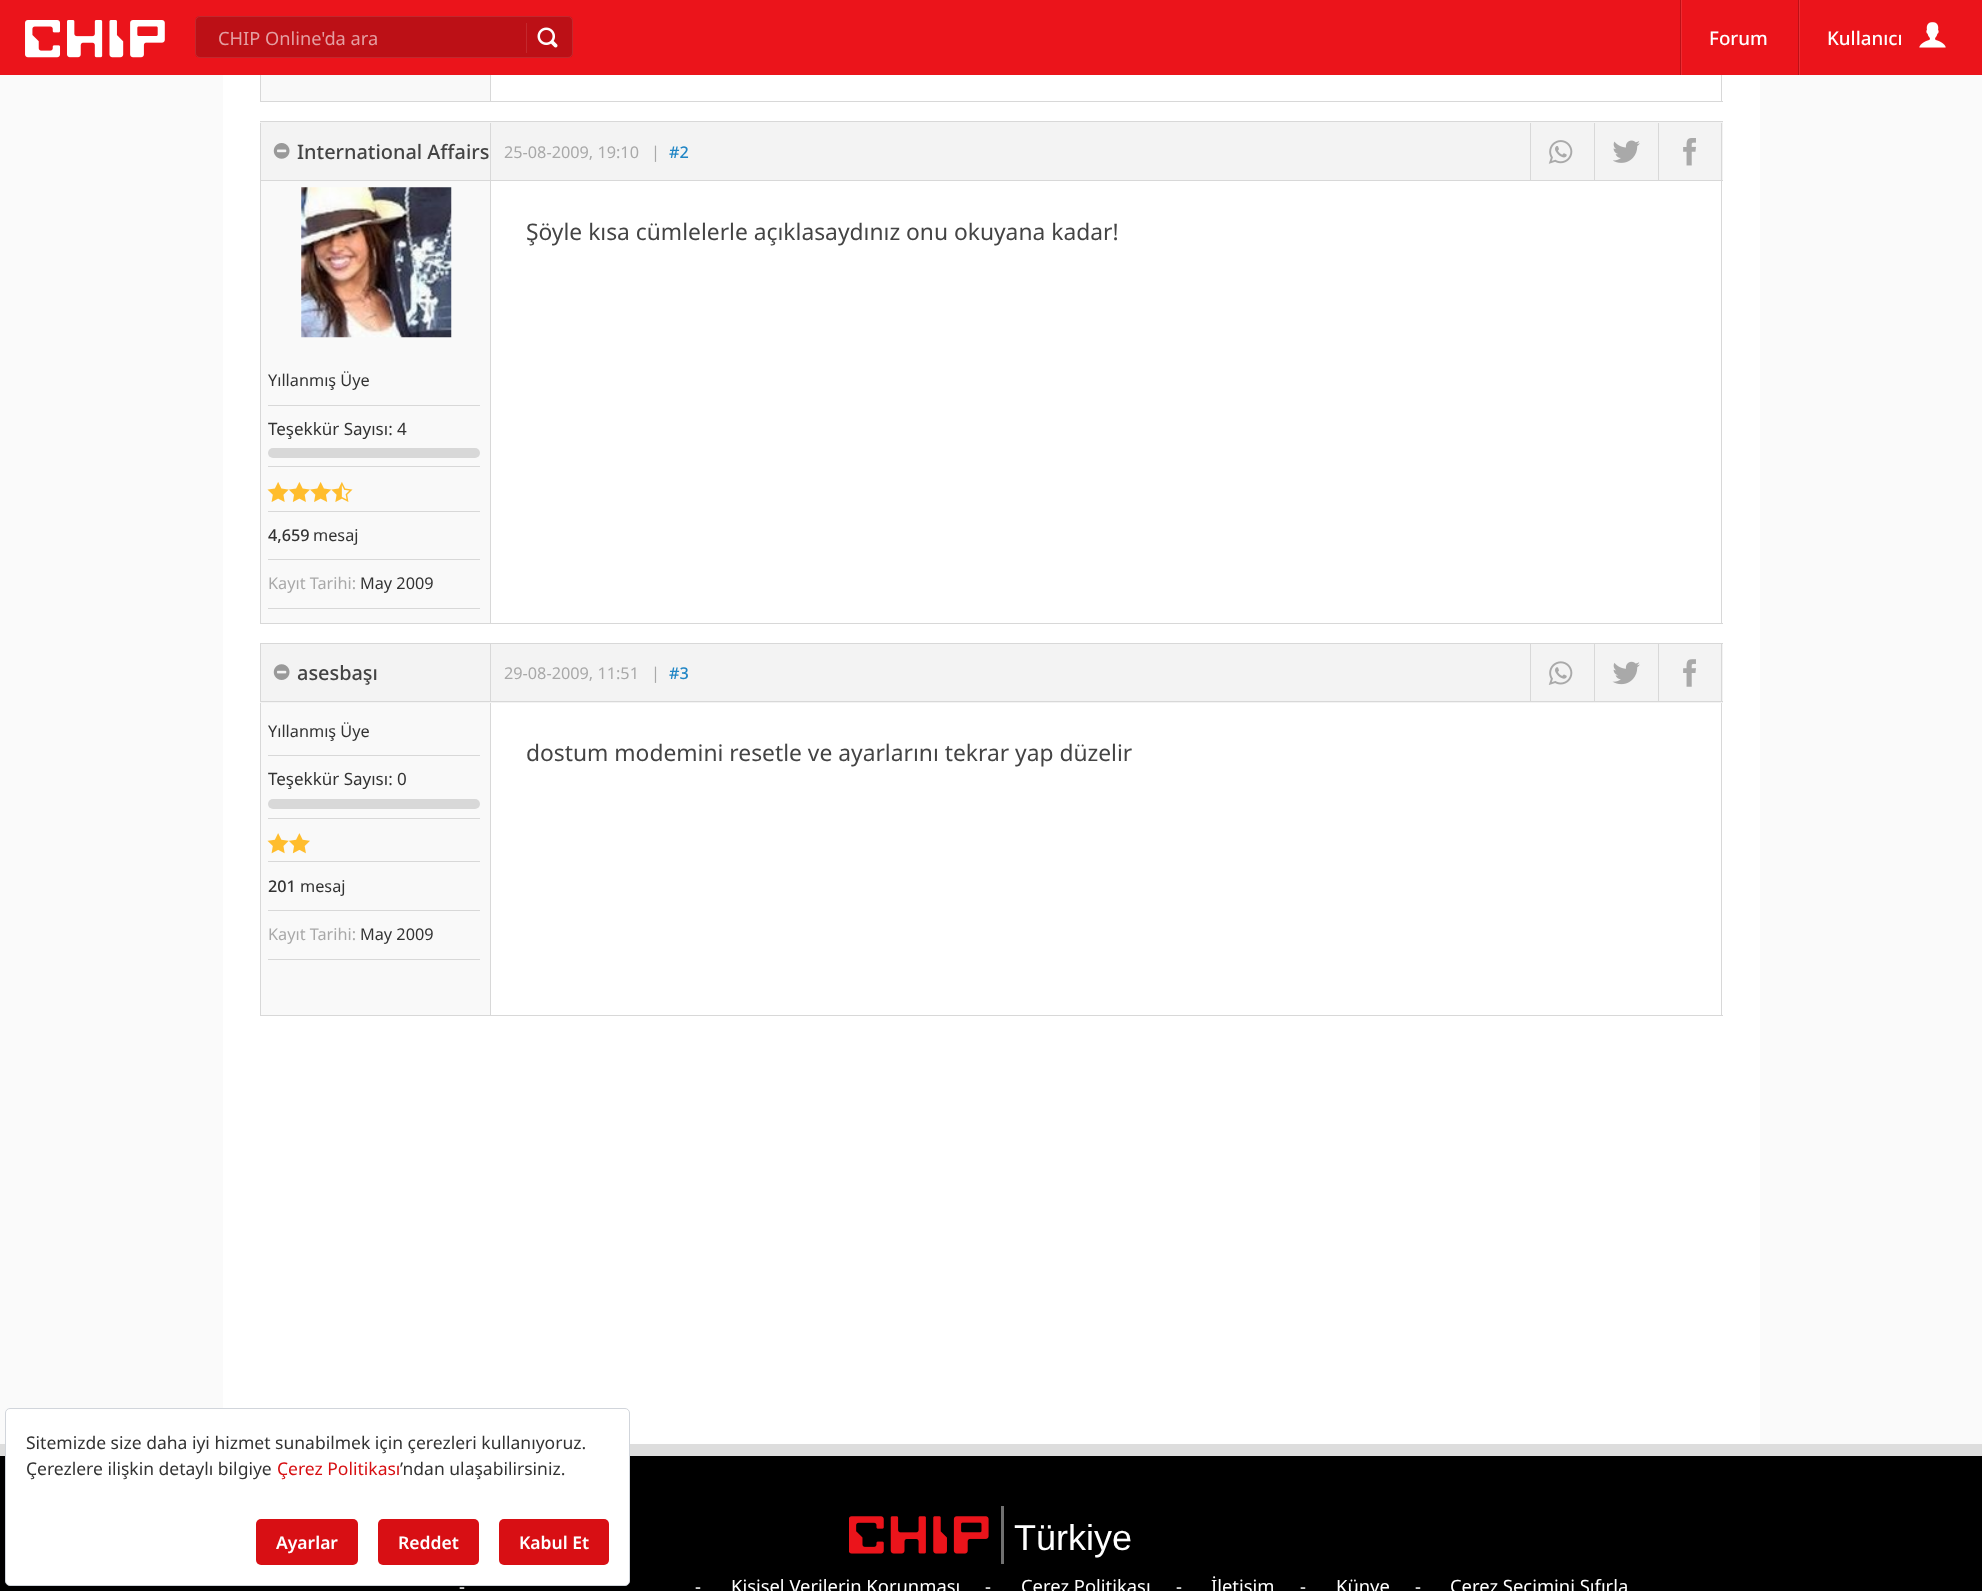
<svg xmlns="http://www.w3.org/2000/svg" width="1982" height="1591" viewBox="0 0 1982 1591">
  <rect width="100%" height="100%" fill="rgb(250,250,250)"/>
  <rect x="0" y="0" width="1982" height="75" fill="rgb(235,20,27)"/>
  <image x="25" y="20" width="140" height="38" href="pic1.png"/>
  <rect x="195" y="16" width="378" height="42" rx="5" fill="rgb(188,16,22)"/>
  <rect x="195.5" y="16.5" width="377" height="41" rx="4.5" fill="none" stroke="rgba(255,255,255,0.1)"/>
  <text x="218" y="45" font-family="Noto Sans" font-size="18.25" fill="rgb(228,159,162)">CHIP Online'da ara</text>
  <rect x="526" y="23" width="1" height="30" fill="rgb(195,40,45)"/>
  <image x="537" y="27" width="21" height="21" href="pic2.png"/>
  <rect x="1681" y="0" width="1" height="75" fill="rgb(237,44,50)"/>
  <rect x="1680" y="0" width="1" height="75" fill="rgb(188,16,22)"/>
  <text x="1709" y="45" font-family="Noto Sans" font-size="18.75" font-weight="500" fill="rgb(255,255,255)">Forum</text>
  <rect x="1799" y="0" width="1" height="75" fill="rgb(237,44,50)"/>
  <rect x="1798" y="0" width="1" height="75" fill="rgb(188,16,22)"/>
  <text x="1827" y="45" font-family="Noto Sans" font-size="18.75" font-weight="500" fill="rgb(255,255,255)">Kullanıcı</text>
  <image x="1919" y="22" width="27" height="26" href="pic3.png"/>
  <rect x="223" y="75" width="1537" height="1369" fill="rgb(255,255,255)"/>
  <rect x="260" y="101" width="1463" height="1" fill="rgb(216,216,216)"/>
  <rect x="261" y="75" width="229" height="26" fill="rgb(249,249,249)"/>
  <rect x="260" y="75" width="1" height="26" fill="rgb(216,216,216)"/>
  <rect x="1721" y="75" width="1" height="26" fill="rgb(216,216,216)"/>
  <rect x="490" y="75" width="1" height="26" fill="rgb(216,216,216)"/>
  <rect x="260" y="122" width="1463" height="58" fill="rgb(243,243,243)"/>
  <rect x="260" y="121" width="1463" height="1" fill="rgb(216,216,216)"/>
  <rect x="260" y="180" width="1463" height="1" fill="rgb(216,216,216)"/>
  <rect x="490" y="123" width="1" height="57" fill="rgb(216,216,216)"/>
  <rect x="260" y="123" width="1" height="57" fill="rgb(216,216,216)"/>
  <image x="273" y="143" width="17" height="16" href="pic4.png"/>
  <text x="297" y="159" font-family="Noto Sans" font-size="19.9" font-weight="500" fill="rgb(68,68,68)">International Affairs</text>
  <rect x="1721" y="123" width="1" height="57" fill="rgb(216,216,216)"/>
  <g font-family="Noto Sans" font-size="16.25" fill="rgb(169,169,169)">
    <text x="504" y="158">25-08-2009, 19:10</text>
    <text x="651" y="158">|</text>
  </g>
  <text x="669" y="158" font-family="Noto Sans" font-size="16.25" font-weight="500" fill="rgb(31,133,197)">#2</text>
  <rect x="1530" y="123" width="1" height="57" fill="rgb(216,216,216)"/>
  <image x="1548" y="140" width="25" height="24" href="pic5.png"/>
  <rect x="1594" y="123" width="1" height="57" fill="rgb(216,216,216)"/>
  <image x="1613" y="140" width="27" height="23" href="pic6.png"/>
  <rect x="1658" y="123" width="1" height="57" fill="rgb(216,216,216)"/>
  <image x="1683" y="138" width="13" height="28" href="pic7.png"/>
  <rect x="260" y="623" width="1463" height="1" fill="rgb(216,216,216)"/>
  <rect x="1721" y="181" width="1" height="442" fill="rgb(216,216,216)"/>
  <rect x="490" y="181" width="1" height="442" fill="rgb(216,216,216)"/>
  <text x="526" y="240" font-family="Noto Sans" font-size="22.8" fill="rgb(68,68,68)">Şöyle kısa cümlelerle açıklasaydınız onu okuyana kadar!</text>
  <rect x="261" y="181" width="229" height="442" fill="rgb(249,249,249)"/>
  <rect x="260" y="181" width="1" height="442" fill="rgb(216,216,216)"/>
  <image x="301" y="187" width="151" height="151" href="pic8.png"/>
  <rect x="268" y="405" width="212" height="1" fill="rgb(216,216,216)"/>
  <text x="268" y="386" font-family="Noto Sans" font-size="16.25" fill="rgb(51,51,51)">Yıllanmış Üye</text>
  <rect x="268" y="466" width="212" height="1" fill="rgb(216,216,216)"/>
  <text x="268" y="435" font-family="Noto Sans" font-size="17" fill="rgb(51,51,51)">Teşekkür Sayısı: 4</text>
  <rect x="268" y="448" width="212" height="10" rx="5" fill="rgb(216,216,216)"/>
  <rect x="268" y="511" width="212" height="1" fill="rgb(216,216,216)"/>
  <image x="267" y="482" width="86" height="20" href="pic9.png"/>
  <rect x="268" y="559" width="212" height="1" fill="rgb(216,216,216)"/>
  <text x="268" y="541" font-family="Noto Sans" font-size="16.25" font-weight="500" fill="rgb(51,51,51)">4,659</text>
  <text x="313" y="541" font-family="Noto Sans" font-size="16.25" fill="rgb(51,51,51)">mesaj</text>
  <rect x="268" y="608" width="212" height="1" fill="rgb(216,216,216)"/>
  <text x="268" y="589" font-family="Noto Sans" font-size="16.25" fill="rgb(169,169,169)">Kayıt Tarihi:</text>
  <text x="360" y="589" font-family="Noto Sans" font-size="16.25" fill="rgb(51,51,51)">May 2009</text>
  <rect x="260" y="644" width="1463" height="59" fill="rgb(243,243,243)"/>
  <rect x="260" y="643" width="1463" height="1" fill="rgb(216,216,216)"/>
  <rect x="260" y="701" width="1463" height="1" fill="rgb(216,216,216)"/>
  <rect x="490" y="644" width="1" height="57" fill="rgb(216,216,216)"/>
  <rect x="260" y="644" width="1" height="57" fill="rgb(216,216,216)"/>
  <image x="273" y="664" width="17" height="16" href="pic10.png"/>
  <text x="297" y="680" font-family="Noto Sans" font-size="19.9" font-weight="500" fill="rgb(68,68,68)">asesbaşı</text>
  <rect x="1721" y="644" width="1" height="57" fill="rgb(216,216,216)"/>
  <g font-family="Noto Sans" font-size="16.25" fill="rgb(169,169,169)">
    <text x="504" y="679">29-08-2009, 11:51</text>
    <text x="651" y="679">|</text>
  </g>
  <text x="669" y="679" font-family="Noto Sans" font-size="16.25" font-weight="500" fill="rgb(31,133,197)">#3</text>
  <rect x="1530" y="644" width="1" height="57" fill="rgb(216,216,216)"/>
  <image x="1548" y="661" width="25" height="24" href="pic11.png"/>
  <rect x="1594" y="644" width="1" height="57" fill="rgb(216,216,216)"/>
  <image x="1612" y="661" width="28" height="24" href="pic12.png"/>
  <rect x="1658" y="644" width="1" height="57" fill="rgb(216,216,216)"/>
  <image x="1683" y="659" width="13" height="28" href="pic13.png"/>
  <rect x="260" y="1015" width="1463" height="1" fill="rgb(216,216,216)"/>
  <rect x="261" y="703" width="229" height="312" fill="rgb(249,249,249)"/>
  <rect x="260" y="703" width="1" height="312" fill="rgb(216,216,216)"/>
  <rect x="268" y="755" width="212" height="1" fill="rgb(216,216,216)"/>
  <text x="268" y="737" font-family="Noto Sans" font-size="16.25" fill="rgb(51,51,51)">Yıllanmış Üye</text>
  <rect x="268" y="818" width="212" height="1" fill="rgb(216,216,216)"/>
  <text x="268" y="785" font-family="Noto Sans" font-size="17" fill="rgb(51,51,51)">Teşekkür Sayısı: 0</text>
  <rect x="268" y="799" width="212" height="10" rx="5" fill="rgb(216,216,216)"/>
  <rect x="268" y="861" width="212" height="1" fill="rgb(216,216,216)"/>
  <image x="267" y="833" width="43" height="21" href="pic14.png"/>
  <rect x="268" y="910" width="212" height="1" fill="rgb(216,216,216)"/>
  <text x="268" y="892" font-family="Noto Sans" font-size="16.25" font-weight="500" fill="rgb(51,51,51)">201</text>
  <text x="300" y="892" font-family="Noto Sans" font-size="16.25" fill="rgb(51,51,51)">mesaj</text>
  <rect x="268" y="959" width="212" height="1" fill="rgb(216,216,216)"/>
  <text x="268" y="940" font-family="Noto Sans" font-size="16.25" fill="rgb(169,169,169)">Kayıt Tarihi:</text>
  <text x="360" y="940" font-family="Noto Sans" font-size="16.25" fill="rgb(51,51,51)">May 2009</text>
  <rect x="1721" y="703" width="1" height="312" fill="rgb(216,216,216)"/>
  <rect x="490" y="703" width="1" height="312" fill="rgb(216,216,216)"/>
  <text x="526" y="761" font-family="Noto Sans" font-size="22.8" fill="rgb(68,68,68)">dostum modemini resetle ve ayarlarını tekrar yap düzelir</text>
  <rect x="0" y="1444" width="1982" height="12" fill="rgb(221,221,221)"/>
  <rect x="0" y="1456" width="1982" height="135" fill="rgb(0,0,0)"/>
  <image x="849" y="1506" width="155" height="58" href="pic15.png"/>
  <text x="1014" y="1550" font-family="Liberation Sans" font-size="36" fill="rgb(255,255,255)">Türkiye</text>
  <g font-family="Noto Sans" font-size="18.4" fill="rgb(255,255,255)">
    <text x="459" y="1593">-</text>
    <text x="695" y="1593">-</text>
    <text x="731" y="1593">Kişisel Verilerin Korunması</text>
    <text x="985" y="1593">-</text>
    <text x="1021" y="1593">Çerez Politikası</text>
    <text x="1176" y="1593">-</text>
    <text x="1211" y="1593">İletişim</text>
    <text x="1300" y="1593">-</text>
    <text x="1336" y="1593">Künye</text>
    <text x="1415" y="1593">-</text>
    <text x="1450" y="1593">Çerez Seçimini Sıfırla</text>
  </g>
  <rect x="5.5" y="1408.5" width="624" height="177" rx="4.5" fill="rgb(255,255,255)" stroke="rgb(209,213,219)"/>
  <g font-family="Noto Sans" font-size="17.5" fill="rgb(51,51,51)">
    <text>
      <tspan x="26" y="1449">Sitemizde size daha iyi hizmet sunabilmek için çerezleri kullanıyoruz.</tspan>
      <tspan x="26" y="1475">Çerezlere ilişkin detaylı bilgiye</tspan>
    </text>
  </g>
  <text x="277" y="1475" font-family="Noto Sans" font-size="17.5" fill="rgb(215,15,18)">Çerez Politikası</text>
  <text x="400" y="1475" font-family="Noto Sans" font-size="17.5" fill="rgb(51,51,51)">’ndan ulaşabilirsiniz.</text>
  <rect x="256" y="1519" width="102" height="46" rx="5" fill="rgb(216,15,20)"/>
  <text x="276" y="1549" font-family="Noto Sans" font-size="17.5" font-weight="600" fill="rgb(255,255,255)">Ayarlar</text>
  <rect x="378" y="1519" width="101" height="46" rx="5" fill="rgb(216,15,20)"/>
  <text x="398" y="1549" font-family="Noto Sans" font-size="17.5" font-weight="600" fill="rgb(255,255,255)">Reddet</text>
  <rect x="499" y="1519" width="110" height="46" rx="5" fill="rgb(216,15,20)"/>
  <text x="519" y="1549" font-family="Noto Sans" font-size="17.5" font-weight="600" fill="rgb(255,255,255)">Kabul Et</text>
</svg>
